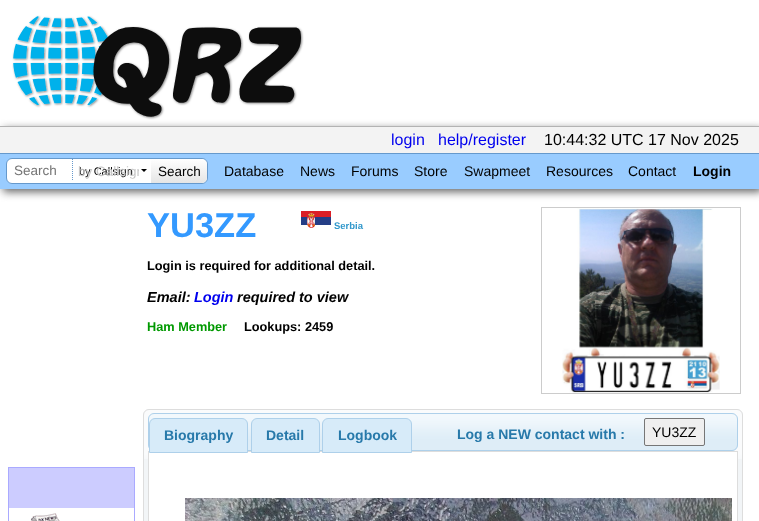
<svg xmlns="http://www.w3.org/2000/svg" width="759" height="521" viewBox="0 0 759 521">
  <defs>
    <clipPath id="clip1"><rect x="78" y="163" width="61" height="17"/></clipPath>
    <linearGradient id="g1" gradientUnits="userSpaceOnUse" x1="179" y1="159" x2="179" y2="183"><stop offset="0" stop-color="rgb(255,255,255)"/><stop offset="1" stop-color="rgb(229,229,229)"/></linearGradient>
  </defs>
  <rect width="100%" height="100%" fill="rgb(255,255,255)"/>
  <rect x="3" y="129" width="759" height="63" fill="rgb(102,102,102)" filter="blur(4px)"/>
  <image x="12" y="15" width="292" height="105" href="pic1.png"/>
  <rect x="0" y="127" width="759" height="26" fill="rgb(243,243,243)"/>
  <rect x="0" y="126" width="759" height="1" fill="rgb(179,179,179)"/>
  <g font-family="Liberation Sans" font-size="16" fill="rgb(0,0,238)">
    <text x="391" y="145">login</text>
    <text x="438" y="145">help/register</text>
  </g>
  <text x="544" y="145" font-family="Liberation Sans" font-size="16" fill="rgb(0,0,0)">10:44:32 UTC 17 Nov 2025</text>
  <rect x="0" y="154" width="759" height="35" fill="rgb(153,204,255)"/>
  <rect x="0" y="153" width="759" height="1" fill="rgb(102,153,204)"/>
  <rect x="6.5" y="158.5" width="201" height="25" rx="5.5" fill="rgb(255,255,255)" stroke="rgb(102,153,204)"/>
  <path d="M72.5 159V181" fill="none" stroke="rgb(102,153,204)" stroke-dasharray="1 1"/>
  <text x="14" y="175" font-family="Liberation Sans" font-size="13.5" fill="rgb(117,117,117)">Search</text>
  <text x="79" y="175" font-family="Liberation Sans" font-size="11" fill="rgb(0,0,0)">by Callsign</text>
  <g clip-path="url(#clip1)">
    <text x="78" y="176" font-family="Liberation Sans" font-size="13.5" fill="rgb(199,199,199)">by Callsign</text>
  </g>
  <path d="M141 169H147L144 172Z" fill="rgb(0,0,0)"/>
  <path d="M151 159H201C204.5 159 207 161.5 207 165V177C207 180.5 204.5 183 201 183H151Z" fill="url(#g1)"/>
  <text x="158" y="176" font-family="Liberation Sans" font-size="13.5" fill="rgb(0,0,0)">Search</text>
  <g font-family="Liberation Sans" font-size="14" fill="rgb(0,0,0)">
    <text x="224" y="176">Database</text>
    <text x="300" y="176">News</text>
    <text x="351" y="176">Forums</text>
    <text x="414" y="176">Store</text>
    <text x="464" y="176">Swapmeet</text>
    <text x="546" y="176">Resources</text>
    <text x="628" y="176">Contact</text>
  </g>
  <text x="693" y="176" font-family="Liberation Sans" font-size="14" font-weight="bold" fill="rgb(0,0,0)">Login</text>
  <text x="147" y="237" font-family="Liberation Sans" font-size="34.5" font-weight="bold" fill="rgb(51,153,255)">YU3ZZ</text>
  <image x="301" y="211" width="30" height="17" href="pic2.png"/>
  <text x="334" y="229" font-family="Liberation Sans" font-size="9.5" font-weight="bold" fill="rgb(51,153,204)">Serbia</text>
  <text x="147" y="270" font-family="Liberation Sans" font-size="12.75" font-weight="bold" fill="rgb(0,0,0)">Login is required for additional detail.</text>
  <text x="147" y="302" font-family="Liberation Sans" font-size="14.5" font-weight="bold" font-style="italic" fill="rgb(0,0,0)">Email:</text>
  <text x="194" y="302" font-family="Liberation Sans" font-size="14.5" font-weight="bold" font-style="italic" fill="rgb(0,0,238)">Login</text>
  <text x="237" y="302" font-family="Liberation Sans" font-size="14.5" font-weight="bold" font-style="italic" fill="rgb(0,0,0)">required to view</text>
  <text x="147" y="331" font-family="Liberation Sans" font-size="12.75" font-weight="bold" fill="rgb(0,153,0)">Ham Member</text>
  <text x="244" y="331" font-family="Liberation Sans" font-size="12.75" font-weight="bold" fill="rgb(0,0,0)">Lookups: 2459</text>
  <rect x="541.5" y="207.5" width="199" height="186" fill="none" stroke="rgb(204,204,204)"/>
  <image x="562" y="208" width="158" height="185" href="pic3.png"/>
  <rect x="143" y="409" width="600" height="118" rx="6" fill="rgb(242,245,247)"/>
  <image x="143" y="410" width="600" height="49" href="pic4.png"/>
  <rect x="143.5" y="409.5" width="599" height="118" rx="5.5" fill="none" stroke="rgb(221,221,221)"/>
  <image x="148" y="413" width="590" height="38" href="pic5.png"/>
  <rect x="148.5" y="413.5" width="589" height="37" rx="5.5" fill="none" stroke="rgb(174,208,234)"/>
  <rect x="148.5" y="451.5" width="589" height="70" fill="rgb(255,255,255)" stroke="rgb(221,221,221)"/>
  <path d="M155 418.5H242C245 418.5 247.5 421 247.5 424V452.5H149.5V424C149.5 421 152 418.5 155 418.5Z" fill="rgb(215,235,249)" stroke="rgb(174,208,234)"/>
  <text x="164" y="440" font-family="Liberation Sans" font-size="14" font-weight="bold" fill="rgb(39,121,170)">Biography</text>
  <path d="M257 418.5H314C317 418.5 319.5 421 319.5 424V452.5H251.5V424C251.5 421 254 418.5 257 418.5Z" fill="rgb(215,235,249)" stroke="rgb(174,208,234)"/>
  <text x="266" y="440" font-family="Liberation Sans" font-size="14" font-weight="bold" fill="rgb(39,121,170)">Detail</text>
  <path d="M328 418.5H406C409 418.5 411.5 421 411.5 424V452.5H322.5V424C322.5 421 325 418.5 328 418.5Z" fill="rgb(215,235,249)" stroke="rgb(174,208,234)"/>
  <g font-family="Liberation Sans" font-size="14" font-weight="bold" fill="rgb(39,121,170)">
    <text x="338" y="440">Logbook</text>
    <text x="457" y="439">Log a NEW contact with :</text>
  </g>
  <rect x="644.5" y="418.5" width="60" height="27" rx="1.5" fill="rgb(239,239,239)" stroke="rgb(118,118,118)"/>
  <text x="652" y="437" font-family="Liberation Sans" font-size="14" fill="rgb(0,0,0)">YU3ZZ</text>
  <image x="185" y="498" width="547" height="23" href="pic6.png"/>
  <rect x="9" y="468" width="125" height="40" fill="rgb(204,204,255)"/>
  <rect x="8.5" y="467.5" width="126" height="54" fill="none" stroke="rgb(170,170,255)"/>
  <image x="9" y="508" width="125" height="13" href="pic7.png"/>
</svg>
